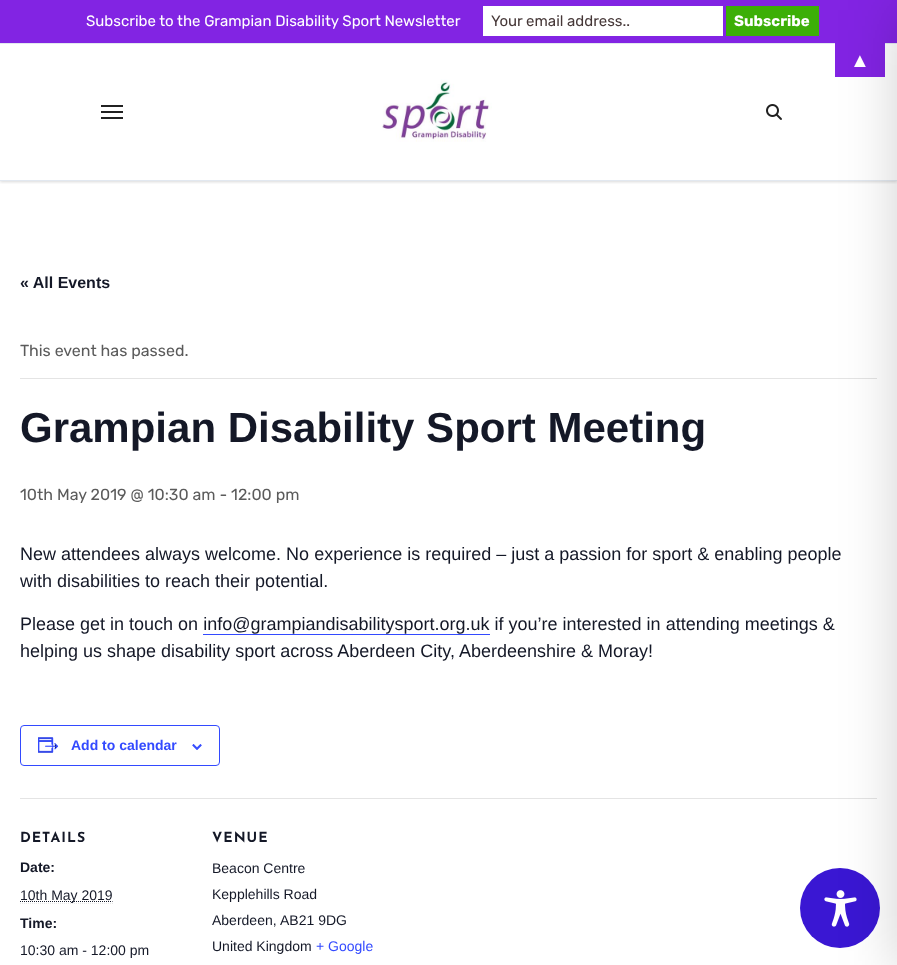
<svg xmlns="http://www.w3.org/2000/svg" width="897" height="965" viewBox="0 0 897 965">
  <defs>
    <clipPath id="clip1"><rect x="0" y="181" width="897" height="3"/></clipPath>
  </defs>
  <rect width="100%" height="100%" fill="rgb(255,255,255)"/>
  <g clip-path="url(#clip1)">
    <rect x="0" y="44" width="897" height="138" fill="rgba(0,0,0,0.15)" filter="blur(1.5px)"/>
  </g>
  <rect x="0" y="0" width="897" height="43" fill="rgb(130,36,227)"/>
  <rect x="726" y="6" width="93" height="30" fill="rgb(60,175,7)"/>
  <rect x="0" y="43" width="897" height="1" fill="rgb(226,232,240)"/>
  <rect x="835" y="43" width="50" height="34" fill="rgb(130,36,227)"/>
  <rect x="0" y="180" width="897" height="1" fill="rgb(226,232,240)"/>
  <rect x="20" y="378" width="857" height="1" fill="rgb(228,228,228)"/>
  <rect x="20" y="798" width="857" height="1" fill="rgb(228,228,228)"/>
  <circle cx="840" cy="908" r="40" fill="rgb(58,23,211)"/>
  <image x="824" y="890" width="33" height="37" href="pic5.png"/>
  <rect x="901" y="10" width="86" height="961" fill="rgba(0,0,0,0.2)" filter="blur(30px)"/>
  <text x="86" y="26" font-family="Rubik" font-size="15" font-weight="300" fill="rgb(255,255,255)">Subscribe to the Grampian Disability Sport Newsletter</text>
  <rect x="483" y="6" width="240" height="30" fill="rgb(255,255,255)"/>
  <text x="491" y="26" font-family="Rubik" font-size="15" font-weight="300" fill="rgb(70,56,56)">Your email address..</text>
  <text x="734" y="26" font-family="Rubik" font-size="15" font-weight="bold" fill="rgb(255,255,255)">Subscribe</text>
  <text x="850" y="67" font-family="Liberation Sans" font-size="20" fill="rgb(255,255,255)">▲</text>
  <rect x="101" y="105" width="22" height="2" fill="rgb(33,33,33)"/>
  <rect x="101" y="111" width="22" height="2" fill="rgb(33,33,33)"/>
  <rect x="101" y="117" width="22" height="2" fill="rgb(33,33,33)"/>
  <image x="382" y="79" width="110" height="63" href="pic1.png"/>
  <image x="766" y="104" width="16" height="16" href="pic2.png"/>
  <text x="20" y="288" font-family="Liberation Sans" font-size="16" font-weight="bold" fill="rgb(20,24,39)">« All Events</text>
  <text x="20" y="356" font-family="Rubik" font-size="16" font-weight="300" fill="rgb(91,91,91)">This event has passed.</text>
  <text x="20" y="442" font-family="Liberation Sans" font-size="42" font-weight="bold" fill="rgb(20,24,39)">Grampian Disability Sport Meeting</text>
  <text x="20" y="500" font-family="Rubik" font-size="16" font-weight="300" fill="rgb(91,91,91)">10th May 2019 @ 10:30 am - 12:00 pm</text>
  <g font-family="Liberation Sans" font-size="18" fill="rgb(20,24,39)">
    <text>
      <tspan x="20" y="560">New attendees always welcome. No experience is required – just a passion for sport &amp; enabling people</tspan>
      <tspan x="20" y="587">with disabilities to reach their potential.</tspan>
    </text>
    <text x="20" y="630">Please get in touch on info@grampiandisabilitysport.org.uk if you’re interested in attending meetings &amp;</text>
  </g>
  <rect x="203" y="634" width="287" height="1" fill="rgb(51,74,255)"/>
  <text x="20" y="657" font-family="Liberation Sans" font-size="18" fill="rgb(20,24,39)">helping us shape disability sport across Aberdeen City, Aberdeenshire &amp; Moray!</text>
  <rect x="20.5" y="725.5" width="199" height="40" rx="3.5" fill="none" stroke="rgb(51,74,255)"/>
  <image x="38" y="737" width="21" height="16" href="pic3.png"/>
  <text x="71" y="750" font-family="Liberation Sans" font-size="14" font-weight="bold" fill="rgb(51,74,255)">Add to calendar</text>
  <image x="192" y="744" width="10" height="6" href="pic4.png"/>
  <text x="20" y="842" font-family="Josefin Sans" font-size="14" font-weight="bold" letter-spacing="1" fill="rgb(20,24,39)">DETAILS</text>
  <text x="20" y="872" font-family="Liberation Sans" font-size="14" font-weight="bold" fill="rgb(20,24,39)">Date:</text>
  <path d="M20 901.5H112.5" fill="none" stroke="rgb(20,24,39)" stroke-dasharray="1 1"/>
  <text x="20" y="900" font-family="Liberation Sans" font-size="14" fill="rgb(20,24,39)">10th May 2019</text>
  <path d="M20 903.5H113" fill="none" stroke="rgb(233,233,233)" stroke-dasharray="1 1"/>
  <text x="20" y="928" font-family="Liberation Sans" font-size="14" font-weight="bold" fill="rgb(20,24,39)">Time:</text>
  <text x="20" y="955" font-family="Liberation Sans" font-size="14" fill="rgb(20,24,39)">10:30 am - 12:00 pm</text>
  <text x="212" y="842" font-family="Josefin Sans" font-size="14" font-weight="bold" letter-spacing="1" fill="rgb(20,24,39)">VENUE</text>
  <g font-family="Liberation Sans" font-size="14" fill="rgb(20,24,39)">
    <text>
      <tspan x="212" y="873">Beacon Centre</tspan>
      <tspan x="212" y="899">Kepplehills Road</tspan>
      <tspan x="212" y="925">Aberdeen,</tspan>
    </text>
    <text x="280" y="925">AB21 9DG</text>
    <text x="212" y="951">United Kingdom</text>
  </g>
  <text x="316" y="951" font-family="Liberation Sans" font-size="14" fill="rgb(51,74,255)">+ Google</text>
</svg>
